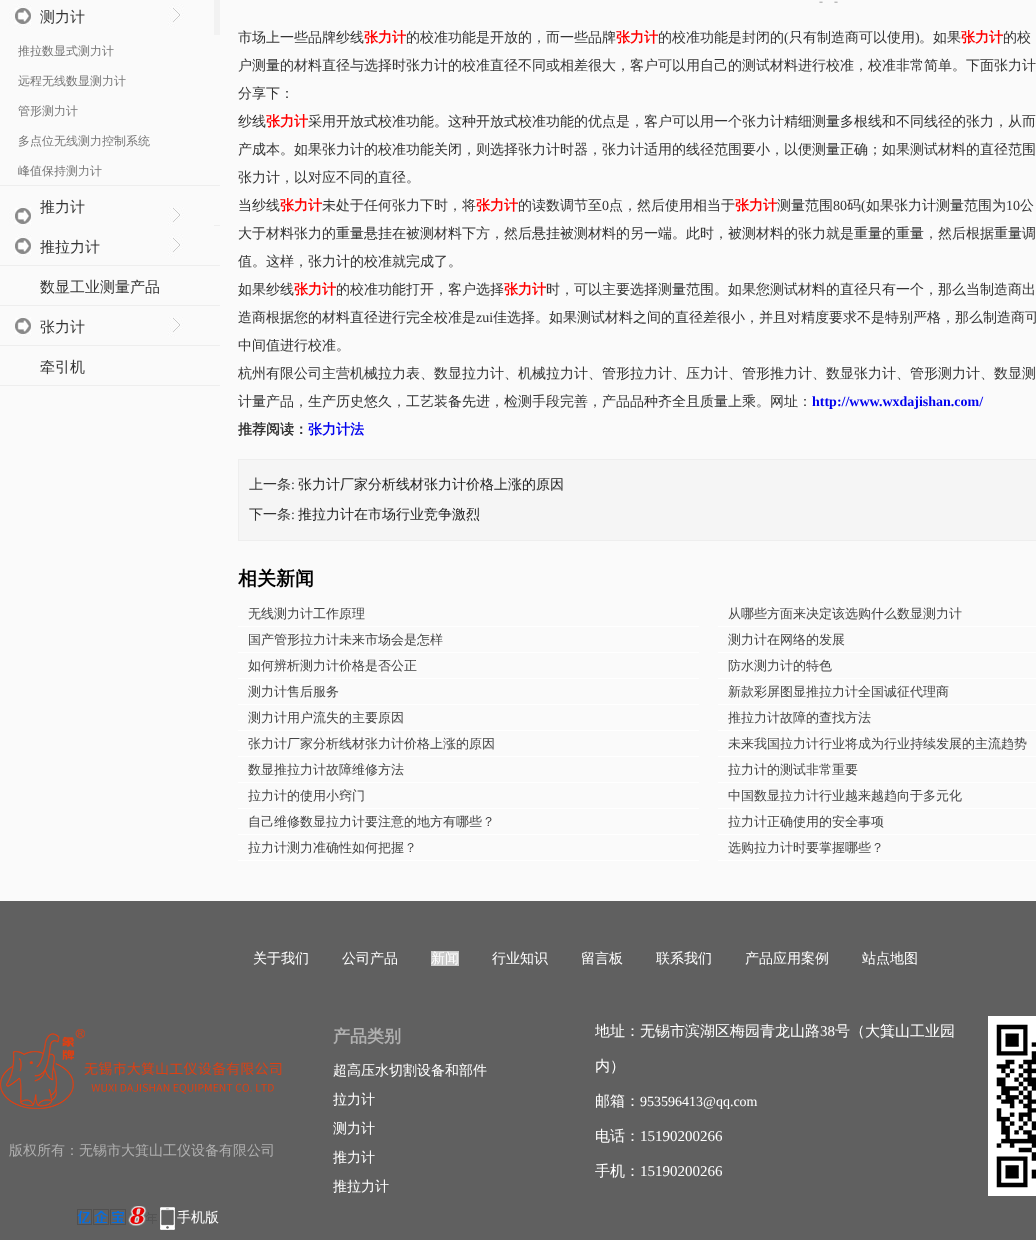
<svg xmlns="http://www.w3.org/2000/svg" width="1036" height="1240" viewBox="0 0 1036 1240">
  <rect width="100%" height="100%" fill="rgb(250,250,250)"/>
  <rect x="0" y="185" width="220" height="1" fill="rgb(238,238,238)"/>
  <rect x="214" y="0" width="6" height="35" fill="rgb(242,242,242)"/>
  <image x="0" y="0" width="214" height="35" href="pic1.png"/>
  <text x="40" y="22" font-family="WenQuanYi Zen Hei" font-size="15" font-weight="500" fill="rgb(51,51,51)">测力计</text>
  <g font-family="WenQuanYi Zen Hei" font-size="12" font-weight="500" fill="rgb(119,119,119)">
    <text x="18" y="55">推拉数显式测力计</text>
    <text x="18" y="85">远程无线数显测力计</text>
    <text x="18" y="115">管形测力计</text>
    <text x="18" y="145">多点位无线测力控制系统</text>
    <text x="18" y="175">峰值保持测力计</text>
  </g>
  <rect x="214" y="225" width="6" height="1" fill="rgb(238,238,238)"/>
  <image x="0" y="207" width="214" height="20" href="pic2.png"/>
  <text x="40" y="212" font-family="WenQuanYi Zen Hei" font-size="15" font-weight="500" fill="rgb(51,51,51)">推力计</text>
  <rect x="0" y="265" width="220" height="1" fill="rgb(238,238,238)"/>
  <image x="15" y="226" width="168" height="31" href="pic3.png"/>
  <text x="40" y="252" font-family="WenQuanYi Zen Hei" font-size="15" font-weight="500" fill="rgb(51,51,51)">推拉力计</text>
  <rect x="0" y="305" width="220" height="1" fill="rgb(238,238,238)"/>
  <text x="40" y="292" font-family="WenQuanYi Zen Hei" font-size="15" font-weight="500" fill="rgb(51,51,51)">数显工业测量产品</text>
  <rect x="0" y="345" width="220" height="1" fill="rgb(238,238,238)"/>
  <image x="15" y="317" width="168" height="20" href="pic4.png"/>
  <text x="40" y="332" font-family="WenQuanYi Zen Hei" font-size="15" font-weight="500" fill="rgb(51,51,51)">张力计</text>
  <rect x="0" y="385" width="220" height="1" fill="rgb(238,238,238)"/>
  <text x="40" y="372" font-family="WenQuanYi Zen Hei" font-size="15" font-weight="500" fill="rgb(51,51,51)">牵引机</text>
  <g font-family="Liberation Serif" font-size="12" fill="rgb(153,153,153)">
    <text x="819" y="5">-</text>
    <text x="834" y="5">-</text>
  </g>
  <text x="238" y="42" font-family="WenQuanYi Zen Hei" font-size="14" font-weight="500" fill="rgb(51,51,51)">市场上一些品牌纱线</text>
  <text x="364" y="42" font-family="WenQuanYi Zen Hei" font-size="14" font-weight="bold" fill="rgb(255,0,0)">张力计</text>
  <text x="406" y="42" font-family="WenQuanYi Zen Hei" font-size="14" font-weight="500" fill="rgb(51,51,51)">的校准功能是开放的，而一些品牌</text>
  <text x="616" y="42" font-family="WenQuanYi Zen Hei" font-size="14" font-weight="bold" fill="rgb(255,0,0)">张力计</text>
  <text x="658" y="42" font-family="WenQuanYi Zen Hei" font-size="14" font-weight="500" fill="rgb(51,51,51)">的校准功能是封闭的</text>
  <text x="784" y="42" font-family="Liberation Serif" font-size="14" fill="rgb(51,51,51)">(</text>
  <text x="789" y="42" font-family="WenQuanYi Zen Hei" font-size="14" font-weight="500" fill="rgb(51,51,51)">只有制造商可以使用</text>
  <text x="915" y="42" font-family="Liberation Serif" font-size="14" fill="rgb(51,51,51)">)</text>
  <text x="919" y="42" font-family="WenQuanYi Zen Hei" font-size="14" font-weight="500" fill="rgb(51,51,51)">。如果</text>
  <text x="961" y="42" font-family="WenQuanYi Zen Hei" font-size="14" font-weight="bold" fill="rgb(255,0,0)">张力计</text>
  <g font-family="WenQuanYi Zen Hei" font-size="14" font-weight="500" fill="rgb(51,51,51)">
    <text x="1003" y="42">的校</text>
    <text x="238" y="70">户测量的材料直径与选择时张力计的校准直径不同或相差很大，客户可以用自己的测试材料进行校准，校准非常简单。下面张力计</text>
    <text x="238" y="98">分享下：</text>
    <text x="238" y="126">纱线</text>
  </g>
  <text x="266" y="126" font-family="WenQuanYi Zen Hei" font-size="14" font-weight="bold" fill="rgb(255,0,0)">张力计</text>
  <g font-family="WenQuanYi Zen Hei" font-size="14" font-weight="500" fill="rgb(51,51,51)">
    <text x="308" y="126">采用开放式校准功能。这种开放式校准功能的优点是，客户可以用一个张力计精细测量多根线和不同线径的张力，从而</text>
    <text x="238" y="154">产成本。如果张力计的校准功能关闭，则选择张力计时器，张力计适用的线径范围要小，以便测量正确；如果测试材料的直径范围</text>
    <text x="238" y="182">张力计，以对应不同的直径。</text>
    <text x="238" y="210">当纱线</text>
  </g>
  <text x="280" y="210" font-family="WenQuanYi Zen Hei" font-size="14" font-weight="bold" fill="rgb(255,0,0)">张力计</text>
  <text x="322" y="210" font-family="WenQuanYi Zen Hei" font-size="14" font-weight="500" fill="rgb(51,51,51)">未处于任何张力下时，将</text>
  <text x="476" y="210" font-family="WenQuanYi Zen Hei" font-size="14" font-weight="bold" fill="rgb(255,0,0)">张力计</text>
  <text x="518" y="210" font-family="WenQuanYi Zen Hei" font-size="14" font-weight="500" fill="rgb(51,51,51)">的读数调节至</text>
  <text x="602" y="210" font-family="Liberation Serif" font-size="14" fill="rgb(51,51,51)">0</text>
  <text x="609" y="210" font-family="WenQuanYi Zen Hei" font-size="14" font-weight="500" fill="rgb(51,51,51)">点，然后使用相当于</text>
  <text x="735" y="210" font-family="WenQuanYi Zen Hei" font-size="14" font-weight="bold" fill="rgb(255,0,0)">张力计</text>
  <text x="777" y="210" font-family="WenQuanYi Zen Hei" font-size="14" font-weight="500" fill="rgb(51,51,51)">测量范围</text>
  <text x="833" y="210" font-family="Liberation Serif" font-size="14" fill="rgb(51,51,51)">80</text>
  <text x="847" y="210" font-family="WenQuanYi Zen Hei" font-size="14" font-weight="500" fill="rgb(51,51,51)">码</text>
  <text x="861" y="210" font-family="Liberation Serif" font-size="14" fill="rgb(51,51,51)">(</text>
  <text x="866" y="210" font-family="WenQuanYi Zen Hei" font-size="14" font-weight="500" fill="rgb(51,51,51)">如果张力计测量范围为</text>
  <text x="1006" y="210" font-family="Liberation Serif" font-size="14" fill="rgb(51,51,51)">10</text>
  <g font-family="WenQuanYi Zen Hei" font-size="14" font-weight="500" fill="rgb(51,51,51)">
    <text x="1020" y="210">公</text>
    <text x="238" y="238">大于材料张力的重量悬挂在被测材料下方，然后悬挂被测材料的另一端。此时，被测材料的张力就是重量的重量，然后根据重量调</text>
    <text x="238" y="266">值。这样，张力计的校准就完成了。</text>
    <text x="238" y="294">如果纱线</text>
  </g>
  <text x="294" y="294" font-family="WenQuanYi Zen Hei" font-size="14" font-weight="bold" fill="rgb(255,0,0)">张力计</text>
  <text x="336" y="294" font-family="WenQuanYi Zen Hei" font-size="14" font-weight="500" fill="rgb(51,51,51)">的校准功能打开，客户选择</text>
  <text x="504" y="294" font-family="WenQuanYi Zen Hei" font-size="14" font-weight="bold" fill="rgb(255,0,0)">张力计</text>
  <g font-family="WenQuanYi Zen Hei" font-size="14" font-weight="500" fill="rgb(51,51,51)">
    <text x="546" y="294">时，可以主要选择测量范围。如果您测试材料的直径只有一个，那么当制造商出</text>
    <text x="238" y="322">造商根据您的材料直径进行完全校准是</text>
  </g>
  <text x="476" y="322" font-family="Liberation Serif" font-size="14" fill="rgb(51,51,51)">zui</text>
  <g font-family="WenQuanYi Zen Hei" font-size="14" font-weight="500" fill="rgb(51,51,51)">
    <text x="493" y="322">佳选择。如果测试材料之间的直径差很小，并且对精度要求不是特别严格，那么制造商可</text>
    <text x="238" y="350">中间值进行校准。</text>
    <text x="238" y="378">杭州有限公司主营机械拉力表、数显拉力计、机械拉力计、管形拉力计、压力计、管形推力计、数显张力计、管形测力计、数显测</text>
    <text x="238" y="406">计量产品，生产历史悠久，工艺装备先进，检测手段完善，产品品种齐全且质量上乘。网址：</text>
  </g>
  <text x="812" y="406" font-family="Liberation Serif" font-size="14" font-weight="bold" fill="rgb(0,0,238)">http://www.wxdajishan.com/</text>
  <text x="238" y="434" font-family="WenQuanYi Zen Hei" font-size="14" font-weight="bold" fill="rgb(51,51,51)">推荐阅读：</text>
  <text x="308" y="434" font-family="WenQuanYi Zen Hei" font-size="14" font-weight="bold" fill="rgb(0,0,238)">张力计法</text>
  <rect x="238.5" y="459.5" width="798" height="81" fill="rgb(245,245,245)" stroke="rgb(238,238,238)"/>
  <text x="249" y="489" font-family="WenQuanYi Zen Hei" font-size="14" font-weight="500" fill="rgb(51,51,51)">上一条</text>
  <text x="291" y="489" font-family="Liberation Serif" font-size="14" fill="rgb(51,51,51)">:</text>
  <text x="298" y="489" font-family="WenQuanYi Zen Hei" font-size="14" font-weight="500" fill="rgb(29,29,29)">张力计厂家分析线材张力计价格上涨的原因</text>
  <text x="249" y="519" font-family="WenQuanYi Zen Hei" font-size="14" font-weight="500" fill="rgb(51,51,51)">下一条</text>
  <text x="291" y="519" font-family="Liberation Serif" font-size="14" fill="rgb(51,51,51)">:</text>
  <text x="298" y="519" font-family="WenQuanYi Zen Hei" font-size="14" font-weight="500" fill="rgb(29,29,29)">推拉力计在市场行业竞争激烈</text>
  <text x="238" y="585" font-family="WenQuanYi Zen Hei" font-size="19" font-weight="bold" fill="rgb(0,0,0)">相关新闻</text>
  <rect x="238" y="626" width="461" height="1" fill="rgb(255,255,255)"/>
  <text x="248" y="618" font-family="WenQuanYi Zen Hei" font-size="13" font-weight="500" fill="rgb(68,68,68)">无线测力计工作原理</text>
  <rect x="718" y="626" width="318" height="1" fill="rgb(255,255,255)"/>
  <text x="728" y="618" font-family="WenQuanYi Zen Hei" font-size="13" font-weight="500" fill="rgb(68,68,68)">从哪些方面来决定该选购什么数显测力计</text>
  <rect x="238" y="652" width="461" height="1" fill="rgb(255,255,255)"/>
  <text x="248" y="644" font-family="WenQuanYi Zen Hei" font-size="13" font-weight="500" fill="rgb(68,68,68)">国产管形拉力计未来市场会是怎样</text>
  <rect x="718" y="652" width="318" height="1" fill="rgb(255,255,255)"/>
  <text x="728" y="644" font-family="WenQuanYi Zen Hei" font-size="13" font-weight="500" fill="rgb(68,68,68)">测力计在网络的发展</text>
  <rect x="238" y="678" width="461" height="1" fill="rgb(255,255,255)"/>
  <text x="248" y="670" font-family="WenQuanYi Zen Hei" font-size="13" font-weight="500" fill="rgb(68,68,68)">如何辨析测力计价格是否公正</text>
  <rect x="718" y="678" width="318" height="1" fill="rgb(255,255,255)"/>
  <text x="728" y="670" font-family="WenQuanYi Zen Hei" font-size="13" font-weight="500" fill="rgb(68,68,68)">防水测力计的特色</text>
  <rect x="238" y="704" width="461" height="1" fill="rgb(255,255,255)"/>
  <text x="248" y="696" font-family="WenQuanYi Zen Hei" font-size="13" font-weight="500" fill="rgb(68,68,68)">测力计售后服务</text>
  <rect x="718" y="704" width="318" height="1" fill="rgb(255,255,255)"/>
  <text x="728" y="696" font-family="WenQuanYi Zen Hei" font-size="13" font-weight="500" fill="rgb(68,68,68)">新款彩屏图显推拉力计全国诚征代理商</text>
  <rect x="238" y="730" width="461" height="1" fill="rgb(255,255,255)"/>
  <text x="248" y="722" font-family="WenQuanYi Zen Hei" font-size="13" font-weight="500" fill="rgb(68,68,68)">测力计用户流失的主要原因</text>
  <rect x="718" y="730" width="318" height="1" fill="rgb(255,255,255)"/>
  <text x="728" y="722" font-family="WenQuanYi Zen Hei" font-size="13" font-weight="500" fill="rgb(68,68,68)">推拉力计故障的查找方法</text>
  <rect x="238" y="756" width="461" height="1" fill="rgb(255,255,255)"/>
  <text x="248" y="748" font-family="WenQuanYi Zen Hei" font-size="13" font-weight="500" fill="rgb(68,68,68)">张力计厂家分析线材张力计价格上涨的原因</text>
  <rect x="718" y="756" width="318" height="1" fill="rgb(255,255,255)"/>
  <text x="728" y="748" font-family="WenQuanYi Zen Hei" font-size="13" font-weight="500" fill="rgb(68,68,68)">未来我国拉力计行业将成为行业持续发展的主流趋势</text>
  <rect x="238" y="782" width="461" height="1" fill="rgb(255,255,255)"/>
  <text x="248" y="774" font-family="WenQuanYi Zen Hei" font-size="13" font-weight="500" fill="rgb(68,68,68)">数显推拉力计故障维修方法</text>
  <rect x="718" y="782" width="318" height="1" fill="rgb(255,255,255)"/>
  <text x="728" y="774" font-family="WenQuanYi Zen Hei" font-size="13" font-weight="500" fill="rgb(68,68,68)">拉力计的测试非常重要</text>
  <rect x="238" y="808" width="461" height="1" fill="rgb(255,255,255)"/>
  <text x="248" y="800" font-family="WenQuanYi Zen Hei" font-size="13" font-weight="500" fill="rgb(68,68,68)">拉力计的使用小窍门</text>
  <rect x="718" y="808" width="318" height="1" fill="rgb(255,255,255)"/>
  <text x="728" y="800" font-family="WenQuanYi Zen Hei" font-size="13" font-weight="500" fill="rgb(68,68,68)">中国数显拉力计行业越来越趋向于多元化</text>
  <rect x="238" y="834" width="461" height="1" fill="rgb(255,255,255)"/>
  <text x="248" y="826" font-family="WenQuanYi Zen Hei" font-size="13" font-weight="500" fill="rgb(68,68,68)">自己维修数显拉力计要注意的地方有哪些？</text>
  <rect x="718" y="834" width="318" height="1" fill="rgb(255,255,255)"/>
  <text x="728" y="826" font-family="WenQuanYi Zen Hei" font-size="13" font-weight="500" fill="rgb(68,68,68)">拉力计正确使用的安全事项</text>
  <rect x="238" y="860" width="461" height="1" fill="rgb(255,255,255)"/>
  <text x="248" y="852" font-family="WenQuanYi Zen Hei" font-size="13" font-weight="500" fill="rgb(68,68,68)">拉力计测力准确性如何把握？</text>
  <rect x="718" y="860" width="318" height="1" fill="rgb(255,255,255)"/>
  <text x="728" y="852" font-family="WenQuanYi Zen Hei" font-size="13" font-weight="500" fill="rgb(68,68,68)">选购拉力计时要掌握哪些？</text>
  <rect x="0" y="901" width="1036" height="339" fill="rgb(96,96,96)"/>
  <g font-family="WenQuanYi Zen Hei" font-size="14" font-weight="500" fill="rgb(255,255,255)">
    <text x="253" y="963">关于我们</text>
    <text x="342" y="963">公司产品</text>
  </g>
  <rect x="431" y="951" width="28" height="15" fill="rgb(204,204,204)"/>
  <g font-family="WenQuanYi Zen Hei" font-size="14" font-weight="500" fill="rgb(255,255,255)">
    <text x="431" y="963">新闻</text>
    <text x="492" y="963">行业知识</text>
    <text x="581" y="963">留言板</text>
    <text x="656" y="963">联系我们</text>
    <text x="745" y="963">产品应用案例</text>
    <text x="862" y="963">站点地图</text>
  </g>
  <image x="0" y="1029" width="282" height="80" href="pic5.png"/>
  <text x="9" y="1155" font-family="WenQuanYi Zen Hei" font-size="14" font-weight="500" fill="rgb(176,176,176)">版权所有：无锡市大箕山工仪设备有限公司</text>
  <image x="77" y="1206" width="80" height="20" href="pic6.png"/>
  <image x="160" y="1207" width="15" height="23" href="pic7.png"/>
  <text x="177" y="1222" font-family="WenQuanYi Zen Hei" font-size="14" font-weight="500" fill="rgb(255,255,255)">手机版</text>
  <text x="333" y="1042" font-family="WenQuanYi Zen Hei" font-size="17" font-weight="bold" fill="rgb(176,176,176)">产品类别</text>
  <g font-family="WenQuanYi Zen Hei" font-size="14" font-weight="500" fill="rgb(255,255,255)">
    <text x="333" y="1075">超高压水切割设备和部件</text>
    <text x="333" y="1104">拉力计</text>
    <text x="333" y="1133">测力计</text>
    <text x="333" y="1162">推力计</text>
    <text x="333" y="1191">推拉力计</text>
  </g>
  <text x="595" y="1036" font-family="WenQuanYi Zen Hei" font-size="15" font-weight="500" fill="rgb(255,255,255)">地址：无锡市滨湖区梅园青龙山路</text>
  <text x="820" y="1036" font-family="Liberation Serif" font-size="15" fill="rgb(255,255,255)">38</text>
  <g font-family="WenQuanYi Zen Hei" font-size="15" font-weight="500" fill="rgb(255,255,255)">
    <text x="835" y="1036">号（大箕山工业园</text>
    <text x="595" y="1071">内）</text>
    <text x="595" y="1106">邮箱：</text>
  </g>
  <text x="640" y="1106" font-family="Liberation Serif" font-size="14" fill="rgb(255,255,255)">953596413@qq.com</text>
  <text x="595" y="1141" font-family="WenQuanYi Zen Hei" font-size="15" font-weight="500" fill="rgb(255,255,255)">电话：</text>
  <text x="640" y="1141" font-family="Liberation Serif" font-size="15" fill="rgb(255,255,255)">15190200266</text>
  <text x="595" y="1176" font-family="WenQuanYi Zen Hei" font-size="15" font-weight="500" fill="rgb(255,255,255)">手机：</text>
  <text x="640" y="1176" font-family="Liberation Serif" font-size="15" fill="rgb(255,255,255)">15190200266</text>
  <image x="988" y="1016" width="48" height="180" href="pic8.png"/>
</svg>
